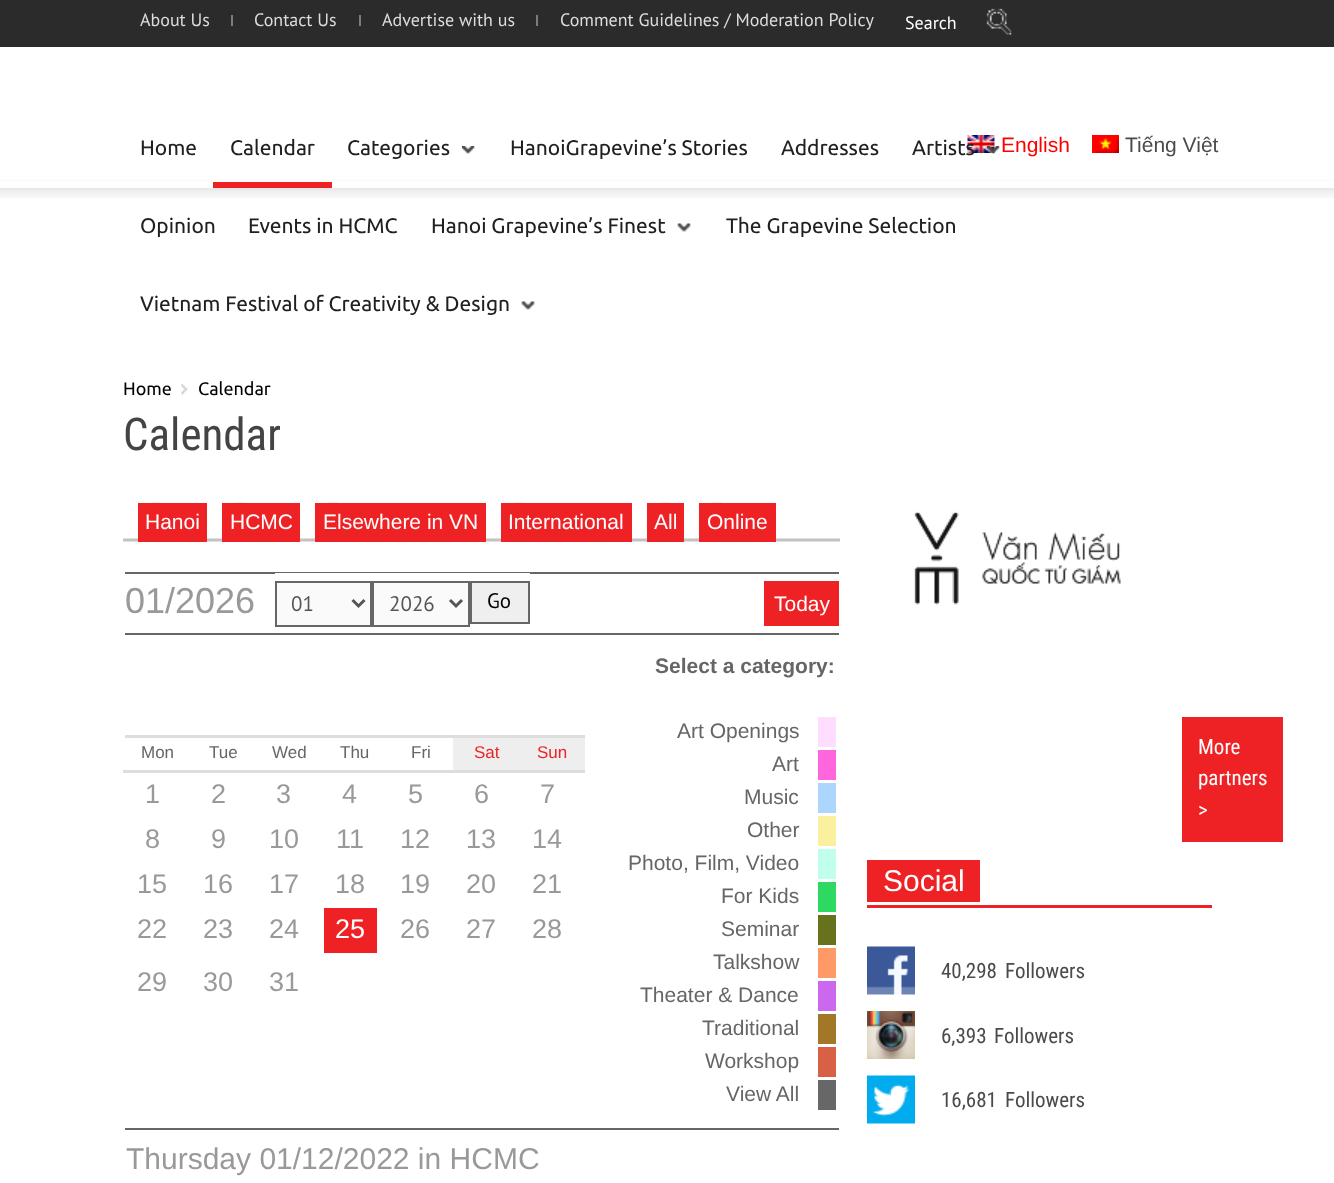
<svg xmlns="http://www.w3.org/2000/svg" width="1334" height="1183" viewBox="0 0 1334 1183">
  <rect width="100%" height="100%" fill="rgb(255,255,255)"/>
  <rect x="0" y="0" width="1334" height="47" fill="rgb(43,43,43)"/>
  <text x="140" y="26" font-family="PT Sans" font-size="18" fill="rgb(221,221,221)">About Us</text>
  <rect x="231" y="15" width="2" height="11" fill="rgb(125,125,125)"/>
  <text x="254" y="26" font-family="PT Sans" font-size="18" fill="rgb(221,221,221)">Contact Us</text>
  <rect x="359" y="15" width="2" height="11" fill="rgb(125,125,125)"/>
  <text x="382" y="26" font-family="PT Sans" font-size="18" fill="rgb(221,221,221)">Advertise with us</text>
  <rect x="536" y="15" width="2" height="11" fill="rgb(125,125,125)"/>
  <text x="560" y="26" font-family="PT Sans" font-size="18" fill="rgb(221,221,221)">Comment Guidelines / Moderation Policy</text>
  <image x="986" y="8" width="26" height="27" href="pic1.png"/>
  <text x="905" y="29" font-family="PT Sans" font-size="18" fill="rgb(255,255,255)">Search</text>
  <rect x="0" y="180" width="1334" height="1" fill="rgb(250,250,250)"/>
  <text x="140" y="155" font-family="Ubuntu" font-size="21" fill="rgb(32,32,32)">Home</text>
  <rect x="213" y="182" width="119" height="6" fill="rgb(238,34,37)"/>
  <g font-family="Ubuntu" font-size="21" fill="rgb(32,32,32)">
    <text x="230" y="155">Calendar</text>
    <text x="347" y="155">Categories</text>
  </g>
  <image x="462" y="146" width="13" height="8" href="pic2.png"/>
  <g font-family="Ubuntu" font-size="21" fill="rgb(32,32,32)">
    <text x="510" y="155">HanoiGrapevine’s Stories</text>
    <text x="781" y="155">Addresses</text>
  </g>
  <image x="967" y="135" width="28" height="18" href="pic6.png"/>
  <text x="912" y="155" font-family="Ubuntu" font-size="21" fill="rgb(32,32,32)">Artists</text>
  <image x="987" y="146" width="13" height="8" href="pic3.png"/>
  <g font-family="Ubuntu" font-size="21" fill="rgb(32,32,32)">
    <text x="140" y="233">Opinion</text>
    <text x="248" y="233">Events in HCMC</text>
    <text x="431" y="233">Hanoi Grapevine’s Finest</text>
  </g>
  <image x="677" y="223" width="14" height="9" href="pic4.png"/>
  <g font-family="Ubuntu" font-size="21" fill="rgb(32,32,32)">
    <text x="726" y="233">The Grapevine Selection</text>
    <text x="140" y="311">Vietnam Festival of Creativity &amp; Design</text>
  </g>
  <image x="521" y="301" width="14" height="9" href="pic5.png"/>
  <text x="1001" y="152" font-family="Liberation Sans" font-size="21" fill="rgb(255,0,0)">English</text>
  <image x="1092" y="135" width="27" height="18" href="pic7.png"/>
  <text x="1125" y="152" font-family="Liberation Sans" font-size="21" fill="rgb(75,75,75)">Tiếng Việt</text>
  <image x="0" y="188" width="1334" height="10" href="pic8.png"/>
  <text x="123" y="395" font-family="Ubuntu" font-size="18" fill="rgb(0,0,0)">Home</text>
  <image x="181" y="384" width="7" height="11" href="pic9.png"/>
  <text x="198" y="395" font-family="Ubuntu" font-size="18" fill="rgb(0,0,0)">Calendar</text>
  <text x="123" y="450" font-family="Roboto Condensed" font-size="45" fill="rgb(68,68,68)">Calendar</text>
  <image x="123" y="538" width="717" height="4" href="pic10.png"/>
  <image x="150" y="502" width="11" height="1" href="pic11.png"/>
  <rect x="138" y="503" width="69" height="39" fill="rgb(238,34,37)"/>
  <text x="145" y="529" font-family="Liberation Sans" font-size="21" fill="rgb(255,255,255)">Hanoi</text>
  <image x="234" y="502" width="11" height="1" href="pic11.png"/>
  <rect x="222" y="503" width="78" height="39" fill="rgb(238,34,37)"/>
  <text x="230" y="529" font-family="Liberation Sans" font-size="21" fill="rgb(255,255,255)">HCMC</text>
  <image x="327" y="502" width="11" height="1" href="pic12.png"/>
  <rect x="315" y="503" width="171" height="39" fill="rgb(238,34,37)"/>
  <text x="323" y="529" font-family="Liberation Sans" font-size="21" fill="rgb(255,255,255)">Elsewhere in VN</text>
  <image x="513" y="502" width="11" height="1" href="pic11.png"/>
  <rect x="501" y="503" width="131" height="39" fill="rgb(238,34,37)"/>
  <text x="508" y="529" font-family="Liberation Sans" font-size="21" fill="rgb(255,255,255)">International</text>
  <image x="646" y="502" width="23" height="40" href="pic13.png"/>
  <rect x="647" y="503" width="37" height="39" fill="rgb(238,34,37)"/>
  <text x="654" y="529" font-family="Liberation Sans" font-size="21" fill="rgb(255,255,255)">All</text>
  <image x="711" y="502" width="11" height="1" href="pic11.png"/>
  <rect x="699" y="503" width="77" height="39" fill="rgb(238,34,37)"/>
  <text x="707" y="529" font-family="Liberation Sans" font-size="21" fill="rgb(255,255,255)">Online</text>
  <rect x="125" y="572" width="714" height="2" fill="rgb(102,102,102)"/>
  <rect x="125" y="633" width="714" height="2" fill="rgb(102,102,102)"/>
  <text x="125" y="613" font-family="Liberation Sans" font-size="36" fill="rgb(153,153,153)">01/2026</text>
  <rect x="275" y="573" width="255" height="1" fill="rgb(255,255,255)"/>
  <rect x="276" y="582" width="95" height="44" fill="rgb(250,250,250)" stroke="rgb(102,102,102)" stroke-width="2"/>
  <path d="M352.5 600L358.5 606L364.5 600" fill="none" stroke="rgb(85,85,85)" stroke-width="3"/>
  <text x="291" y="611" font-family="PT Sans" font-size="21" fill="rgb(85,85,85)">01</text>
  <rect x="373" y="582" width="96" height="44" fill="rgb(250,250,250)" stroke="rgb(102,102,102)" stroke-width="2"/>
  <path d="M450 600L456 606L462 600" fill="none" stroke="rgb(85,85,85)" stroke-width="3"/>
  <text x="389" y="611" font-family="PT Sans" font-size="21" fill="rgb(85,85,85)">2026</text>
  <rect x="471" y="582" width="58" height="41" fill="rgb(239,239,239)" stroke="rgb(102,102,102)" stroke-width="2"/>
  <text x="487" y="608" font-family="PT Sans" font-size="21" fill="rgb(0,0,0)">Go</text>
  <rect x="764" y="581" width="75" height="45" fill="rgb(238,34,37)"/>
  <text x="774" y="611" font-family="Liberation Sans" font-size="21" fill="rgb(255,255,255)">Today</text>
  <rect x="125" y="735" width="460" height="3" fill="rgb(221,221,221)"/>
  <g font-family="Liberation Sans" font-size="17" fill="rgb(102,102,102)">
    <text x="141" y="758">Mon</text>
    <text x="209" y="758">Tue</text>
    <text x="272" y="758">Wed</text>
    <text x="340" y="758">Thu</text>
    <text x="411" y="758">Fri</text>
  </g>
  <rect x="453" y="738" width="132" height="32" fill="rgb(238,238,238)"/>
  <text x="474" y="758" font-family="Liberation Sans" font-size="17" fill="rgb(238,34,37)">Sat</text>
  <rect x="123" y="770" width="464" height="3" fill="rgb(221,221,221)"/>
  <text x="537" y="758" font-family="Liberation Sans" font-size="17" fill="rgb(238,34,37)">Sun</text>
  <g font-family="Liberation Sans" font-size="27" fill="rgb(153,153,153)">
    <text x="145" y="803">1</text>
    <text x="211" y="803">2</text>
    <text x="276" y="803">3</text>
    <text x="342" y="803">4</text>
    <text x="408" y="803">5</text>
    <text x="474" y="803">6</text>
    <text x="540" y="803">7</text>
    <text x="145" y="848">8</text>
    <text x="211" y="848">9</text>
    <text x="269" y="848">10</text>
    <text x="336" y="848">11</text>
    <text x="400" y="848">12</text>
    <text x="466" y="848">13</text>
    <text x="532" y="848">14</text>
    <text x="137" y="893">15</text>
    <text x="203" y="893">16</text>
    <text x="269" y="893">17</text>
    <text x="335" y="893">18</text>
    <text x="400" y="893">19</text>
    <text x="466" y="893">20</text>
    <text x="532" y="893">21</text>
    <text x="137" y="938">22</text>
    <text x="203" y="938">23</text>
    <text x="269" y="938">24</text>
  </g>
  <rect x="324" y="908" width="53" height="45" fill="rgb(238,34,37)"/>
  <text x="335" y="938" font-family="Liberation Sans" font-size="27" fill="rgb(255,255,255)">25</text>
  <g font-family="Liberation Sans" font-size="27" fill="rgb(153,153,153)">
    <text x="400" y="938">26</text>
    <text x="466" y="938">27</text>
    <text x="532" y="938">28</text>
    <text x="137" y="991">29</text>
    <text x="203" y="991">30</text>
    <text x="269" y="991">31</text>
  </g>
  <rect x="585" y="770" width="2" height="3" fill="rgb(255,255,255)"/>
  <text x="655" y="673" font-family="Liberation Sans" font-size="21" font-weight="bold" fill="rgb(102,102,102)">Select a category:</text>
  <text x="677" y="738" font-family="Liberation Sans" font-size="21" fill="rgb(102,102,102)">Art Openings</text>
  <rect x="818" y="717" width="18" height="30" fill="rgb(255,221,255)"/>
  <text x="772" y="771" font-family="Liberation Sans" font-size="21" fill="rgb(102,102,102)">Art</text>
  <rect x="818" y="750" width="18" height="30" fill="rgb(255,102,221)"/>
  <text x="744" y="804" font-family="Liberation Sans" font-size="21" fill="rgb(102,102,102)">Music</text>
  <rect x="818" y="783" width="18" height="30" fill="rgb(173,214,255)"/>
  <text x="747" y="837" font-family="Liberation Sans" font-size="21" fill="rgb(102,102,102)">Other</text>
  <rect x="818" y="816" width="18" height="30" fill="rgb(251,240,158)"/>
  <text x="628" y="870" font-family="Liberation Sans" font-size="21" fill="rgb(102,102,102)">Photo, Film, Video</text>
  <rect x="818" y="849" width="18" height="30" fill="rgb(193,255,237)"/>
  <text x="721" y="903" font-family="Liberation Sans" font-size="21" fill="rgb(102,102,102)">For Kids</text>
  <rect x="818" y="882" width="18" height="30" fill="rgb(46,217,98)"/>
  <text x="721" y="936" font-family="Liberation Sans" font-size="21" fill="rgb(102,102,102)">Seminar</text>
  <rect x="818" y="915" width="18" height="30" fill="rgb(104,113,28)"/>
  <text x="713" y="969" font-family="Liberation Sans" font-size="21" fill="rgb(102,102,102)">Talkshow</text>
  <rect x="818" y="948" width="18" height="30" fill="rgb(255,153,102)"/>
  <text x="640" y="1002" font-family="Liberation Sans" font-size="21" fill="rgb(102,102,102)">Theater &amp; Dance</text>
  <rect x="818" y="981" width="18" height="30" fill="rgb(204,104,238)"/>
  <text x="702" y="1035" font-family="Liberation Sans" font-size="21" fill="rgb(102,102,102)">Traditional</text>
  <rect x="818" y="1014" width="18" height="30" fill="rgb(162,119,40)"/>
  <text x="705" y="1068" font-family="Liberation Sans" font-size="21" fill="rgb(102,102,102)">Workshop</text>
  <rect x="818" y="1047" width="18" height="30" fill="rgb(216,96,69)"/>
  <text x="726" y="1101" font-family="Liberation Sans" font-size="21" fill="rgb(102,102,102)">View All</text>
  <rect x="818" y="1080" width="18" height="30" fill="rgb(103,103,103)"/>
  <rect x="125" y="1128" width="714" height="2" fill="rgb(102,102,102)"/>
  <text x="126" y="1169" font-family="Liberation Sans" font-size="30" fill="rgb(153,153,153)">Thursday 01/12/2022 in HCMC</text>
  <image x="914" y="511" width="207" height="94" href="pic14.png"/>
  <rect x="1182" y="717" width="101" height="125" fill="rgb(238,34,37)"/>
  <g font-family="Roboto Condensed" font-size="21" fill="rgb(255,255,255)">
    <text>
      <tspan x="1198" y="754">More</tspan>
      <tspan x="1198" y="785">partners</tspan>
      <tspan x="1198" y="817">&gt;</tspan>
    </text>
  </g>
  <rect x="867" y="905" width="345" height="3" fill="rgb(238,34,37)"/>
  <rect x="867" y="860" width="113" height="42" fill="rgb(238,34,37)"/>
  <text x="883" y="891" font-family="Liberation Sans" font-size="30" fill="rgb(255,255,255)">Social</text>
  <image x="867" y="946" width="48" height="49" href="pic15.png"/>
  <g font-family="Roboto Condensed" font-size="21" fill="rgb(75,75,75)">
    <text x="941" y="978">40,298</text>
    <text x="1005" y="978">Followers</text>
  </g>
  <image x="867" y="1011" width="48" height="48" href="pic16.png"/>
  <g font-family="Roboto Condensed" font-size="21" fill="rgb(75,75,75)">
    <text x="941" y="1043">6,393</text>
    <text x="994" y="1043">Followers</text>
  </g>
  <image x="867" y="1075" width="48" height="49" href="pic17.png"/>
  <g font-family="Roboto Condensed" font-size="21" fill="rgb(75,75,75)">
    <text x="941" y="1107">16,681</text>
    <text x="1005" y="1107">Followers</text>
  </g>
</svg>
